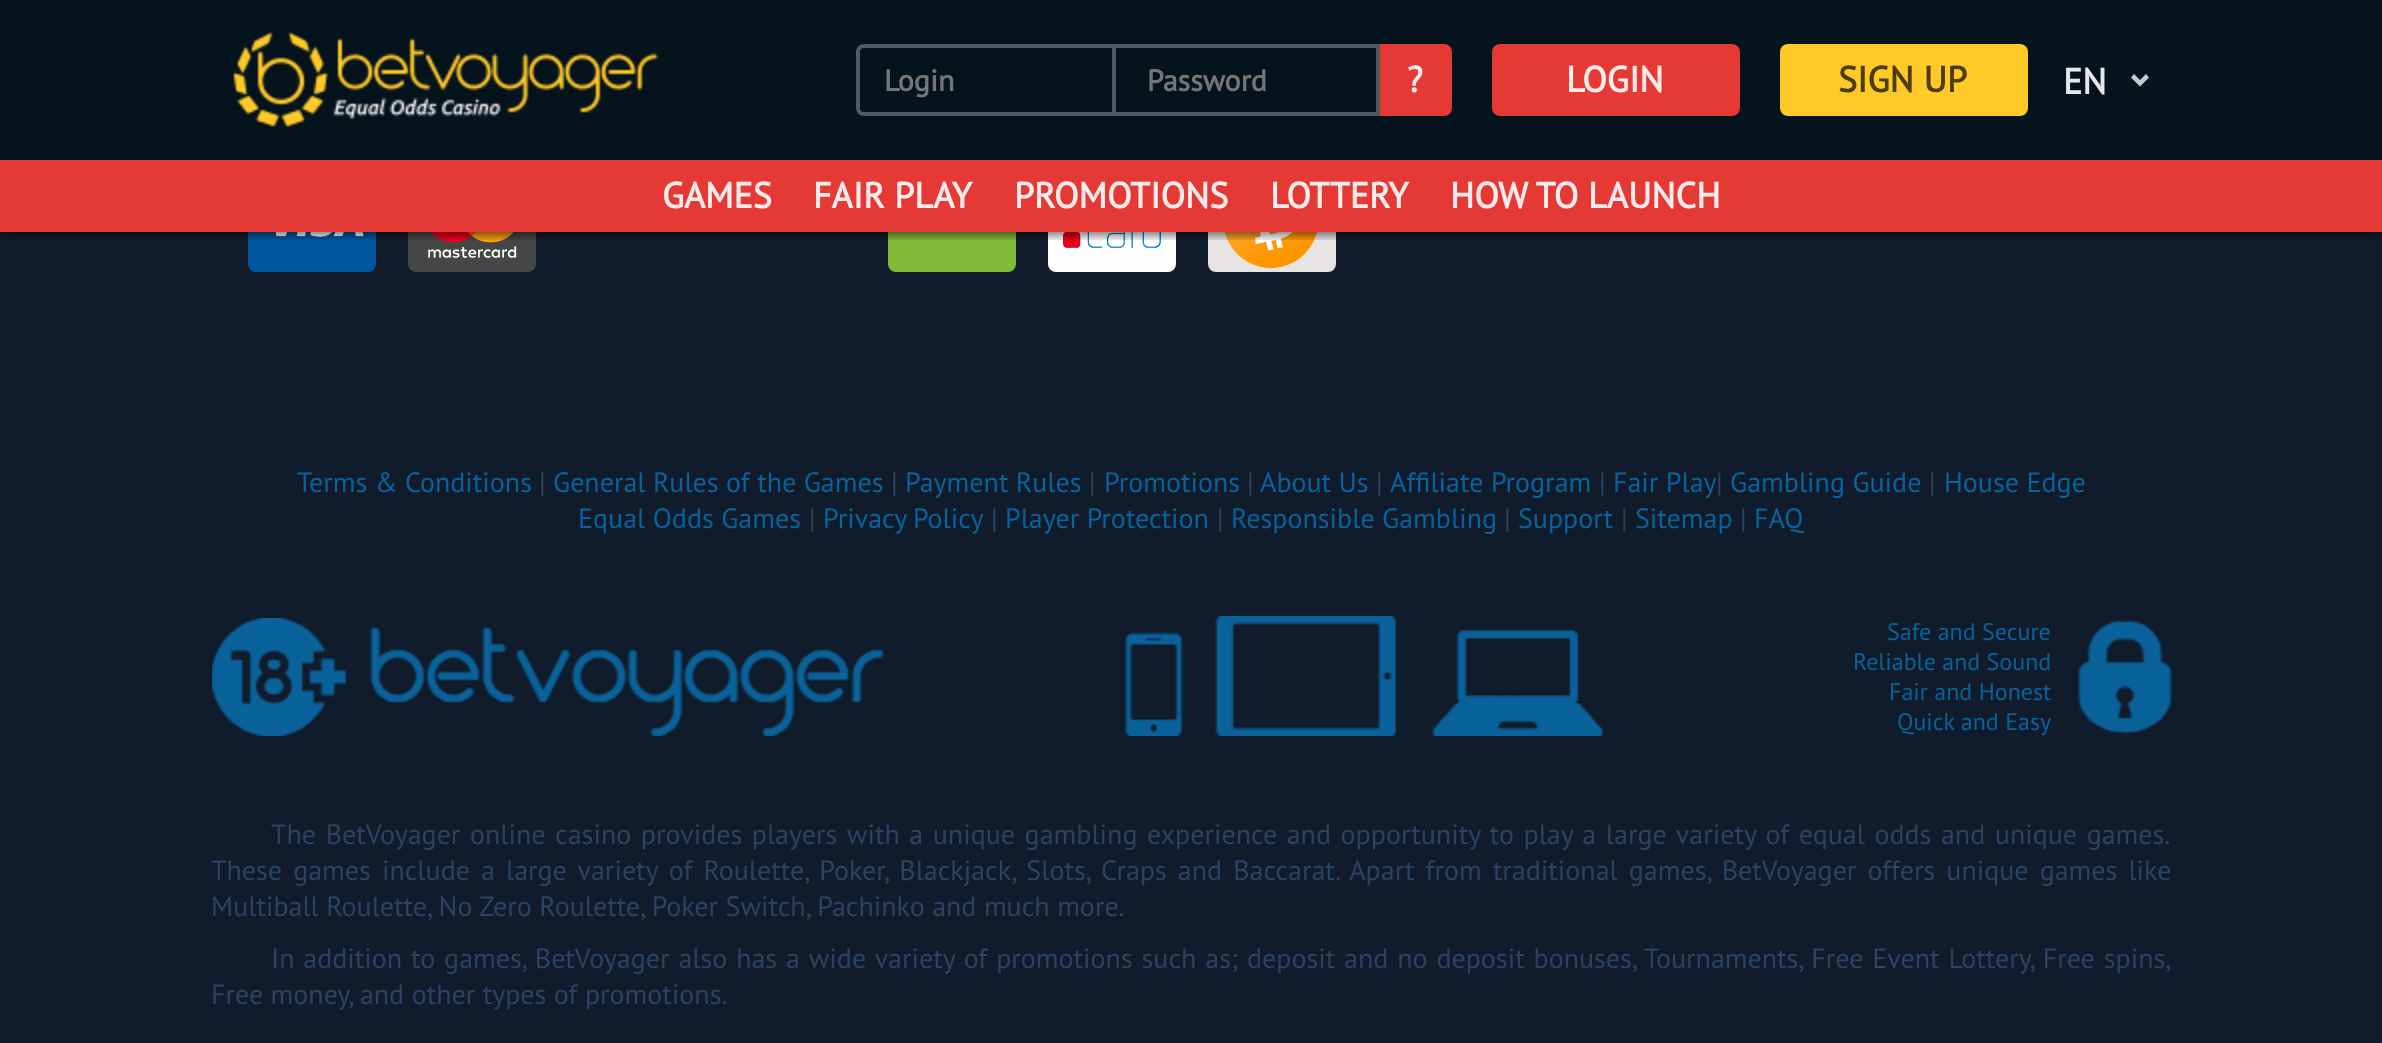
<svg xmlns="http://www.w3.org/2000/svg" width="2382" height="1043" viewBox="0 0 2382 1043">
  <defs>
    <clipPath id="clip1"><rect x="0" y="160" width="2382" height="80"/></clipPath>
  </defs>
  <rect width="100%" height="100%" fill="rgb(16,28,43)"/>
  <rect x="0" y="0" width="2382" height="160" fill="rgb(5,19,28)"/>
  <image x="233" y="31" width="426" height="96" href="pic1.png"/>
  <path d="M864 46H1378V114H864C860.5 114 858 111.5 858 108V52C858 48.5 860.5 46 864 46Z" fill="none" stroke="rgb(80,90,96)" stroke-width="4"/>
  <rect x="1112" y="48" width="4" height="64" fill="rgb(80,90,96)"/>
  <g font-family="PT Sans" font-size="30" font-weight="bold" fill="rgb(117,117,117)">
    <text x="884" y="91">Login</text>
    <text x="1147" y="91">Password</text>
  </g>
  <path d="M1380 44H1444C1448.5 44 1452 47.5 1452 52V108C1452 112.5 1448.5 116 1444 116H1380Z" fill="rgb(229,57,53)"/>
  <text x="1407" y="92" font-family="PT Sans" font-size="36" font-weight="bold" fill="rgb(252,235,235)">?</text>
  <rect x="1492" y="44" width="248" height="72" rx="8" fill="rgb(229,57,53)"/>
  <text x="1566" y="92" font-family="PT Sans" font-size="36" font-weight="bold" fill="rgb(252,235,235)">LOGIN</text>
  <rect x="1780" y="44" width="248" height="72" rx="8" fill="rgb(255,202,40)"/>
  <text x="1838" y="92" font-family="PT Sans" font-size="36" font-weight="bold" fill="rgb(77,61,12)">SIGN UP</text>
  <text x="2063" y="94" font-family="PT Sans" font-size="36" font-weight="bold" fill="rgb(230,231,232)">EN</text>
  <path d="M2140 86.5L2149 77.5L2146 74L2140 80L2134 74L2131 77.5Z" fill="rgb(201,204,206)"/>
  <image x="248" y="232" width="128" height="40" href="pic2.png"/>
  <image x="408" y="232" width="128" height="40" href="pic3.png"/>
  <image x="888" y="232" width="128" height="40" href="pic4.png"/>
  <image x="1048" y="232" width="128" height="40" href="pic5.png"/>
  <image x="1208" y="232" width="128" height="40" href="pic6.png"/>
  <g clip-path="url(#clip1)">
    <rect x="0" y="164" width="2382" height="72" fill="rgba(0,0,0,0.5)" filter="blur(4px)"/>
  </g>
  <rect x="0" y="160" width="2382" height="72" fill="rgb(229,57,53)"/>
  <g font-family="PT Sans" font-size="36" font-weight="bold" fill="rgb(252,235,235)">
    <text x="662" y="208">GAMES</text>
    <text x="813" y="208">FAIR PLAY</text>
    <text x="1014" y="208">PROMOTIONS</text>
    <text x="1270" y="208">LOTTERY</text>
    <text x="1450" y="208">HOW TO LAUNCH</text>
  </g>
  <text x="297" y="492" font-family="PT Sans" font-size="28" fill="rgb(10,98,154)">Terms &amp; Conditions</text>
  <text x="539" y="492" font-family="PT Sans" font-size="28" fill="rgb(43,67,97)">|</text>
  <text x="553" y="492" font-family="PT Sans" font-size="28" fill="rgb(10,98,154)">General Rules of the Games</text>
  <text x="891" y="492" font-family="PT Sans" font-size="28" fill="rgb(43,67,97)">|</text>
  <text x="905" y="492" font-family="PT Sans" font-size="28" fill="rgb(10,98,154)">Payment Rules</text>
  <text x="1089" y="492" font-family="PT Sans" font-size="28" fill="rgb(43,67,97)">|</text>
  <text x="1104" y="492" font-family="PT Sans" font-size="28" fill="rgb(10,98,154)">Promotions</text>
  <text x="1247" y="492" font-family="PT Sans" font-size="28" fill="rgb(43,67,97)">|</text>
  <text x="1260" y="492" font-family="PT Sans" font-size="28" fill="rgb(10,98,154)">About Us</text>
  <text x="1376" y="492" font-family="PT Sans" font-size="28" fill="rgb(43,67,97)">|</text>
  <text x="1390" y="492" font-family="PT Sans" font-size="28" fill="rgb(10,98,154)">Affiliate Program</text>
  <text x="1599" y="492" font-family="PT Sans" font-size="28" fill="rgb(43,67,97)">|</text>
  <text x="1613" y="492" font-family="PT Sans" font-size="28" fill="rgb(10,98,154)">Fair Play</text>
  <text x="1716" y="492" font-family="PT Sans" font-size="28" fill="rgb(43,67,97)">|</text>
  <text x="1730" y="492" font-family="PT Sans" font-size="28" fill="rgb(10,98,154)">Gambling Guide</text>
  <text x="1929" y="492" font-family="PT Sans" font-size="28" fill="rgb(43,67,97)">|</text>
  <g font-family="PT Sans" font-size="28" fill="rgb(10,98,154)">
    <text x="1944" y="492">House Edge</text>
    <text x="578" y="528">Equal Odds Games</text>
  </g>
  <text x="809" y="528" font-family="PT Sans" font-size="28" fill="rgb(43,67,97)">|</text>
  <text x="823" y="528" word-spacing="-1" font-family="PT Sans" font-size="28" fill="rgb(10,98,154)">Privacy Policy</text>
  <text x="991" y="528" font-family="PT Sans" font-size="28" fill="rgb(43,67,97)">|</text>
  <text x="1005" y="528" font-family="PT Sans" font-size="28" fill="rgb(10,98,154)">Player Protection</text>
  <text x="1217" y="528" font-family="PT Sans" font-size="28" fill="rgb(43,67,97)">|</text>
  <text x="1231" y="528" font-family="PT Sans" font-size="28" fill="rgb(10,98,154)">Responsible Gambling</text>
  <text x="1504" y="528" font-family="PT Sans" font-size="28" fill="rgb(43,67,97)">|</text>
  <text x="1518" y="528" font-family="PT Sans" font-size="28" fill="rgb(10,98,154)">Support</text>
  <text x="1621" y="528" font-family="PT Sans" font-size="28" fill="rgb(43,67,97)">|</text>
  <text x="1635" y="528" font-family="PT Sans" font-size="28" fill="rgb(10,98,154)">Sitemap</text>
  <text x="1740" y="528" font-family="PT Sans" font-size="28" fill="rgb(43,67,97)">|</text>
  <text x="1754" y="528" font-family="PT Sans" font-size="28" fill="rgb(10,98,154)">FAQ</text>
  <image x="212" y="618" width="672" height="118" href="pic7.png"/>
  <image x="1124" y="616" width="480" height="120" href="pic8.png"/>
  <image x="2078" y="620" width="94" height="114" href="pic9.png"/>
  <g font-family="PT Sans" font-size="24" fill="rgb(10,98,154)">
    <text x="1887" y="640">Safe and Secure</text>
    <text x="1853" y="670">Reliable and Sound</text>
    <text x="1889" y="700">Fair and Honest</text>
    <text x="1897" y="730">Quick and Easy</text>
  </g>
  <g font-family="PT Sans" font-size="28" fill="rgb(43,67,97)">
    <text x="271" y="844" word-spacing="2.1">The BetVoyager online casino provides players with a unique gambling experience and opportunity to play a large variety of equal odds and unique games.</text>
    <text>
      <tspan x="211" y="880" word-spacing="3.6">These games include a large variety of Roulette, Poker, Blackjack, Slots, Craps and Baccarat. Apart from traditional games, BetVoyager offers unique games like</tspan>
      <tspan x="211" y="916">Multiball Roulette, No Zero Roulette, Poker Switch, Pachinko and much more.</tspan>
    </text>
    <text x="271" y="968" word-spacing="1.4">In addition to games, BetVoyager also has a wide variety of promotions such as; deposit and no deposit bonuses, Tournaments, Free Event Lottery, Free spins,</text>
    <text x="211" y="1004">Free money, and other types of promotions.</text>
  </g>
</svg>
